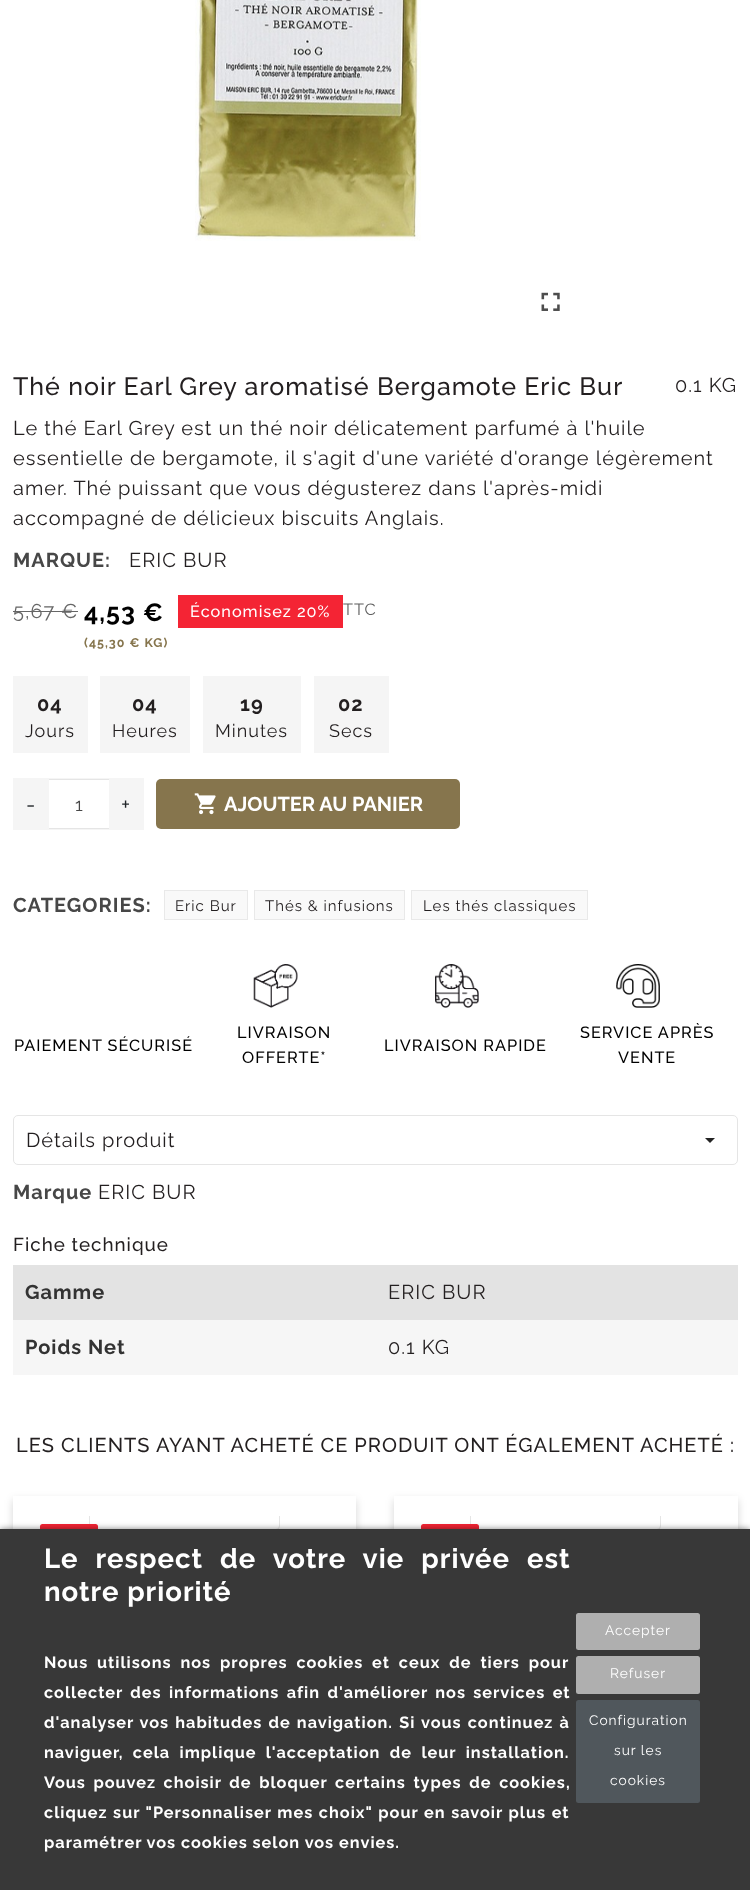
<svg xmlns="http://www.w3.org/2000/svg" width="750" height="1890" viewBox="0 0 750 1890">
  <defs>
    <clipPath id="clip1"><rect x="33" y="1516" width="303" height="30"/></clipPath>
    <clipPath id="clip2"><rect x="414" y="1516" width="304" height="30"/></clipPath>
  </defs>
  <rect width="100%" height="100%" fill="rgb(255,255,255)"/>
  <image x="195" y="0" width="226" height="241" href="pic1.png"/>
  <image x="541" y="292" width="19" height="19" href="pic2.png"/>
  <text x="13" y="395" font-family="Raleway" font-size="25" font-weight="500" letter-spacing="1" fill="rgb(35,31,32)">Thé noir Earl Grey aromatisé Bergamote Eric Bur</text>
  <g font-family="Raleway" font-size="20" letter-spacing="1" fill="rgb(35,31,32)">
    <text x="675" y="392">0.1 KG</text>
    <text>
      <tspan x="13" y="435">Le thé Earl Grey est un thé noir délicatement parfumé à l'huile</tspan>
      <tspan x="13" y="465">essentielle de bergamote, il s'agit d'une variété d'orange légèrement</tspan>
      <tspan x="13" y="495">amer. Thé puissant que vous dégusterez dans l'après-midi</tspan>
      <tspan x="13" y="525">accompagné de délicieux biscuits Anglais.</tspan>
    </text>
  </g>
  <text x="13" y="567" font-family="Raleway" font-size="20" font-weight="bold" letter-spacing="1" fill="rgb(71,71,71)">MARQUE:</text>
  <text x="129" y="567" font-family="Raleway" font-size="20" letter-spacing="1" fill="rgb(35,31,32)">ERIC BUR</text>
  <text x="13" y="618" font-family="Raleway" font-size="20" letter-spacing="1" fill="rgb(102,102,102)">5,67 €</text>
  <rect x="13" y="611" width="65" height="1" fill="rgb(102,102,102)"/>
  <text x="84" y="621" font-family="Raleway" font-size="25" font-weight="bold" letter-spacing="1" fill="rgb(0,0,0)">4,53 €</text>
  <rect x="178" y="595" width="165" height="33" fill="rgb(244,36,52)"/>
  <text x="190" y="617" font-family="Raleway" font-size="16.25" font-weight="500" letter-spacing="1" fill="rgb(255,255,255)">Économisez 20%</text>
  <text x="84" y="647" font-family="Raleway" font-size="12.5" font-weight="bold" letter-spacing="1" fill="rgb(134,117,77)">(45,30 € KG)</text>
  <text x="343" y="615" font-family="Raleway" font-size="16.25" letter-spacing="1" fill="rgb(95,95,95)">TTC</text>
  <rect x="13" y="676" width="75" height="77" fill="rgb(245,245,245)"/>
  <text x="37" y="711" font-family="Raleway" font-size="20" font-weight="bold" letter-spacing="1" fill="rgb(35,31,32)">04</text>
  <text x="25" y="737" font-family="Raleway" font-size="18" letter-spacing="1" fill="rgb(35,31,32)">Jours</text>
  <rect x="100" y="676" width="90" height="77" fill="rgb(245,245,245)"/>
  <text x="132" y="711" font-family="Raleway" font-size="20" font-weight="bold" letter-spacing="1" fill="rgb(35,31,32)">04</text>
  <text x="112" y="737" font-family="Raleway" font-size="18" letter-spacing="1" fill="rgb(35,31,32)">Heures</text>
  <rect x="203" y="676" width="98" height="77" fill="rgb(245,245,245)"/>
  <text x="240" y="711" font-family="Raleway" font-size="20" font-weight="bold" letter-spacing="1" fill="rgb(35,31,32)">19</text>
  <text x="215" y="737" font-family="Raleway" font-size="18" letter-spacing="1" fill="rgb(35,31,32)">Minutes</text>
  <rect x="314" y="676" width="75" height="77" fill="rgb(245,245,245)"/>
  <text x="338" y="711" font-family="Raleway" font-size="20" font-weight="bold" letter-spacing="1" fill="rgb(35,31,32)">02</text>
  <text x="329" y="737" font-family="Raleway" font-size="18" letter-spacing="1" fill="rgb(35,31,32)">Secs</text>
  <rect x="13.5" y="778.5" width="130" height="51" fill="none" stroke="rgb(245,245,245)"/>
  <rect x="48.5" y="779.5" width="61" height="49" fill="none" stroke="rgb(229,229,229)"/>
  <rect x="14" y="779" width="35" height="50" fill="rgb(245,245,245)"/>
  <text x="26" y="812" font-family="Raleway" font-size="22" fill="rgb(33,37,41)">-</text>
  <text x="75" y="811" font-family="Raleway" font-size="18" fill="rgb(71,71,71)">1</text>
  <rect x="109" y="779" width="34" height="50" fill="rgb(245,245,245)"/>
  <text x="121" y="812" font-family="Raleway" font-size="22" fill="rgb(33,37,41)">+</text>
  <rect x="156" y="779" width="304" height="50" rx="5" fill="rgb(134,117,77)"/>
  <image x="194" y="793" width="22" height="22" href="pic3.png"/>
  <text x="224" y="811" font-family="Raleway" font-size="20" font-weight="bold" fill="rgb(255,255,255)">AJOUTER AU PANIER</text>
  <text x="13" y="912" font-family="Raleway" font-size="20" font-weight="bold" letter-spacing="1" fill="rgb(71,71,71)">CATEGORIES:</text>
  <rect x="164.5" y="890.5" width="83" height="29" fill="rgb(249,249,249)" stroke="rgb(233,233,233)"/>
  <text x="175" y="911" font-family="Raleway" font-size="15" letter-spacing="1" fill="rgb(35,31,32)">Eric Bur</text>
  <rect x="254.5" y="890.5" width="150" height="29" fill="rgb(249,249,249)" stroke="rgb(233,233,233)"/>
  <text x="265" y="911" font-family="Raleway" font-size="15" letter-spacing="1" fill="rgb(35,31,32)">Thés &amp; infusions</text>
  <rect x="411.5" y="890.5" width="176" height="29" fill="rgb(249,249,249)" stroke="rgb(233,233,233)"/>
  <text x="423" y="911" font-family="Raleway" font-size="15" letter-spacing="1" fill="rgb(35,31,32)">Les thés classiques</text>
  <text x="14" y="1051" font-family="Raleway" font-size="16.25" font-weight="500" letter-spacing="1" fill="rgb(0,0,0)">PAIEMENT SÉCURISÉ</text>
  <image x="253" y="964" width="45" height="44" href="pic4.png"/>
  <g font-family="Raleway" font-size="16.25" font-weight="500" letter-spacing="1" fill="rgb(0,0,0)">
    <text x="237" y="1038">LIVRAISON</text>
    <text x="242" y="1063">OFFERTE*</text>
  </g>
  <image x="435" y="964" width="44" height="44" href="pic5.png"/>
  <text x="384" y="1051" font-family="Raleway" font-size="16.25" font-weight="500" letter-spacing="1" fill="rgb(0,0,0)">LIVRAISON RAPIDE</text>
  <image x="616" y="964" width="44" height="44" href="pic6.png"/>
  <g font-family="Raleway" font-size="16.25" font-weight="500" letter-spacing="1" fill="rgb(0,0,0)">
    <text x="580" y="1038">SERVICE APRÈS</text>
    <text x="618" y="1063">VENTE</text>
  </g>
  <rect x="13.5" y="1115.5" width="724" height="49" rx="4.5" fill="none" stroke="rgb(229,229,229)"/>
  <text x="26" y="1147" font-family="Raleway" font-size="20" letter-spacing="1" fill="rgb(35,31,32)">Détails produit</text>
  <path d="M705 1138H715L710 1143Z" fill="rgb(35,35,35)"/>
  <text x="13" y="1199" font-family="Raleway" font-size="20" font-weight="bold" letter-spacing="1" fill="rgb(71,71,71)">Marque</text>
  <text x="98" y="1199" font-family="Raleway" font-size="20" letter-spacing="1" fill="rgb(35,31,32)">ERIC BUR</text>
  <text x="13" y="1251" font-family="Raleway" font-size="18.75" font-weight="500" letter-spacing="1" fill="rgb(35,31,32)">Fiche technique</text>
  <rect x="13" y="1265" width="725" height="55" fill="rgb(227,227,227)"/>
  <text x="25" y="1299" font-family="Raleway" font-size="20" font-weight="bold" letter-spacing="1" fill="rgb(51,51,51)">Gamme</text>
  <text x="388" y="1299" font-family="Raleway" font-size="20" letter-spacing="1" fill="rgb(35,31,32)">ERIC BUR</text>
  <rect x="13" y="1320" width="725" height="55" fill="rgb(246,246,246)"/>
  <text x="25" y="1354" font-family="Raleway" font-size="20" font-weight="bold" letter-spacing="1" fill="rgb(51,51,51)">Poids Net</text>
  <text x="388" y="1354" font-family="Raleway" font-size="20" letter-spacing="1" fill="rgb(35,31,32)">0.1 KG</text>
  <text x="16" y="1452" font-family="Raleway" font-size="20" font-weight="500" letter-spacing="1" fill="rgb(35,31,32)">LES CLIENTS AYANT ACHETÉ CE PRODUIT ONT ÉGALEMENT ACHETÉ :</text>
  <rect x="13" y="1500" width="343" height="229" fill="rgba(0,0,0,0.16)" filter="blur(4px)"/>
  <rect x="13" y="1496" width="343" height="33" fill="rgb(255,255,255)"/>
  <g clip-path="url(#clip1)">
    <rect x="89.5" y="1483.5" width="190" height="46" rx="3.5" fill="none" stroke="rgb(229,229,229)"/>
  </g>
  <path d="M42.5 1524H95.5C97 1524 98 1525 98 1526.5V1546H40V1526.5C40 1525 41 1524 42.5 1524Z" fill="rgb(244,36,52)"/>
  <rect x="394" y="1500" width="344" height="229" fill="rgba(0,0,0,0.16)" filter="blur(4px)"/>
  <rect x="394" y="1496" width="344" height="33" fill="rgb(255,255,255)"/>
  <g clip-path="url(#clip2)">
    <rect x="470.5" y="1483.5" width="190" height="46" rx="3.5" fill="none" stroke="rgb(229,229,229)"/>
  </g>
  <path d="M423.5 1524H476.5C478 1524 479 1525 479 1526.5V1546H421V1526.5C421 1525 422 1524 423.5 1524Z" fill="rgb(244,36,52)"/>
  <rect x="0" y="1529" width="750" height="361" fill="rgba(0,0,0,0.5)" filter="blur(3px)"/>
  <rect x="0" y="1529" width="750" height="361" fill="rgb(56,56,56)"/>
  <g font-family="Raleway" font-size="27.5" font-weight="bold" letter-spacing="1" fill="rgb(255,255,255)">
    <text>
      <tspan x="44" y="1568" word-spacing="9.5">Le respect de votre vie privée est</tspan>
      <tspan x="44" y="1601">notre priorité</tspan>
    </text>
  </g>
  <g font-family="Raleway" font-size="16.25" font-weight="bold" letter-spacing="1" fill="rgb(255,255,255)">
    <text>
      <tspan x="44" y="1668" word-spacing="4">Nous utilisons nos propres cookies et ceux de tiers pour</tspan>
      <tspan x="44" y="1698" word-spacing="2.5">collecter des informations afin d'améliorer nos services et</tspan>
      <tspan x="44" y="1728" word-spacing="1.25">d'analyser vos habitudes de navigation. Si vous continuez à</tspan>
      <tspan x="44" y="1758" word-spacing="4.5">naviguer, cela implique l'acceptation de leur installation.</tspan>
      <tspan x="44" y="1788" word-spacing="2.75">Vous pouvez choisir de bloquer certains types de cookies,</tspan>
      <tspan x="44" y="1818" word-spacing="0.75">cliquez sur "Personnaliser mes choix" pour en savoir plus et</tspan>
      <tspan x="44" y="1848">paramétrer vos cookies selon vos envies.</tspan>
    </text>
  </g>
  <rect x="576" y="1613" width="124" height="37" rx="2.5" fill="rgb(175,175,175)"/>
  <text x="605" y="1635" font-family="Raleway" font-size="13.75" letter-spacing="1" fill="rgb(255,255,255)">Accepter</text>
  <rect x="576" y="1656" width="124" height="38" rx="2.5" fill="rgb(175,175,175)"/>
  <text x="610" y="1678" font-family="Raleway" font-size="13.75" letter-spacing="1" fill="rgb(255,255,255)">Refuser</text>
  <rect x="576" y="1700" width="124" height="103" rx="2.5" fill="rgb(80,87,92)"/>
  <g font-family="Raleway" font-size="13.75" letter-spacing="1" fill="rgb(255,255,255)">
    <text x="589" y="1725">Configuration</text>
    <text x="614" y="1755">sur les</text>
    <text x="610" y="1785">cookies</text>
  </g>
</svg>
